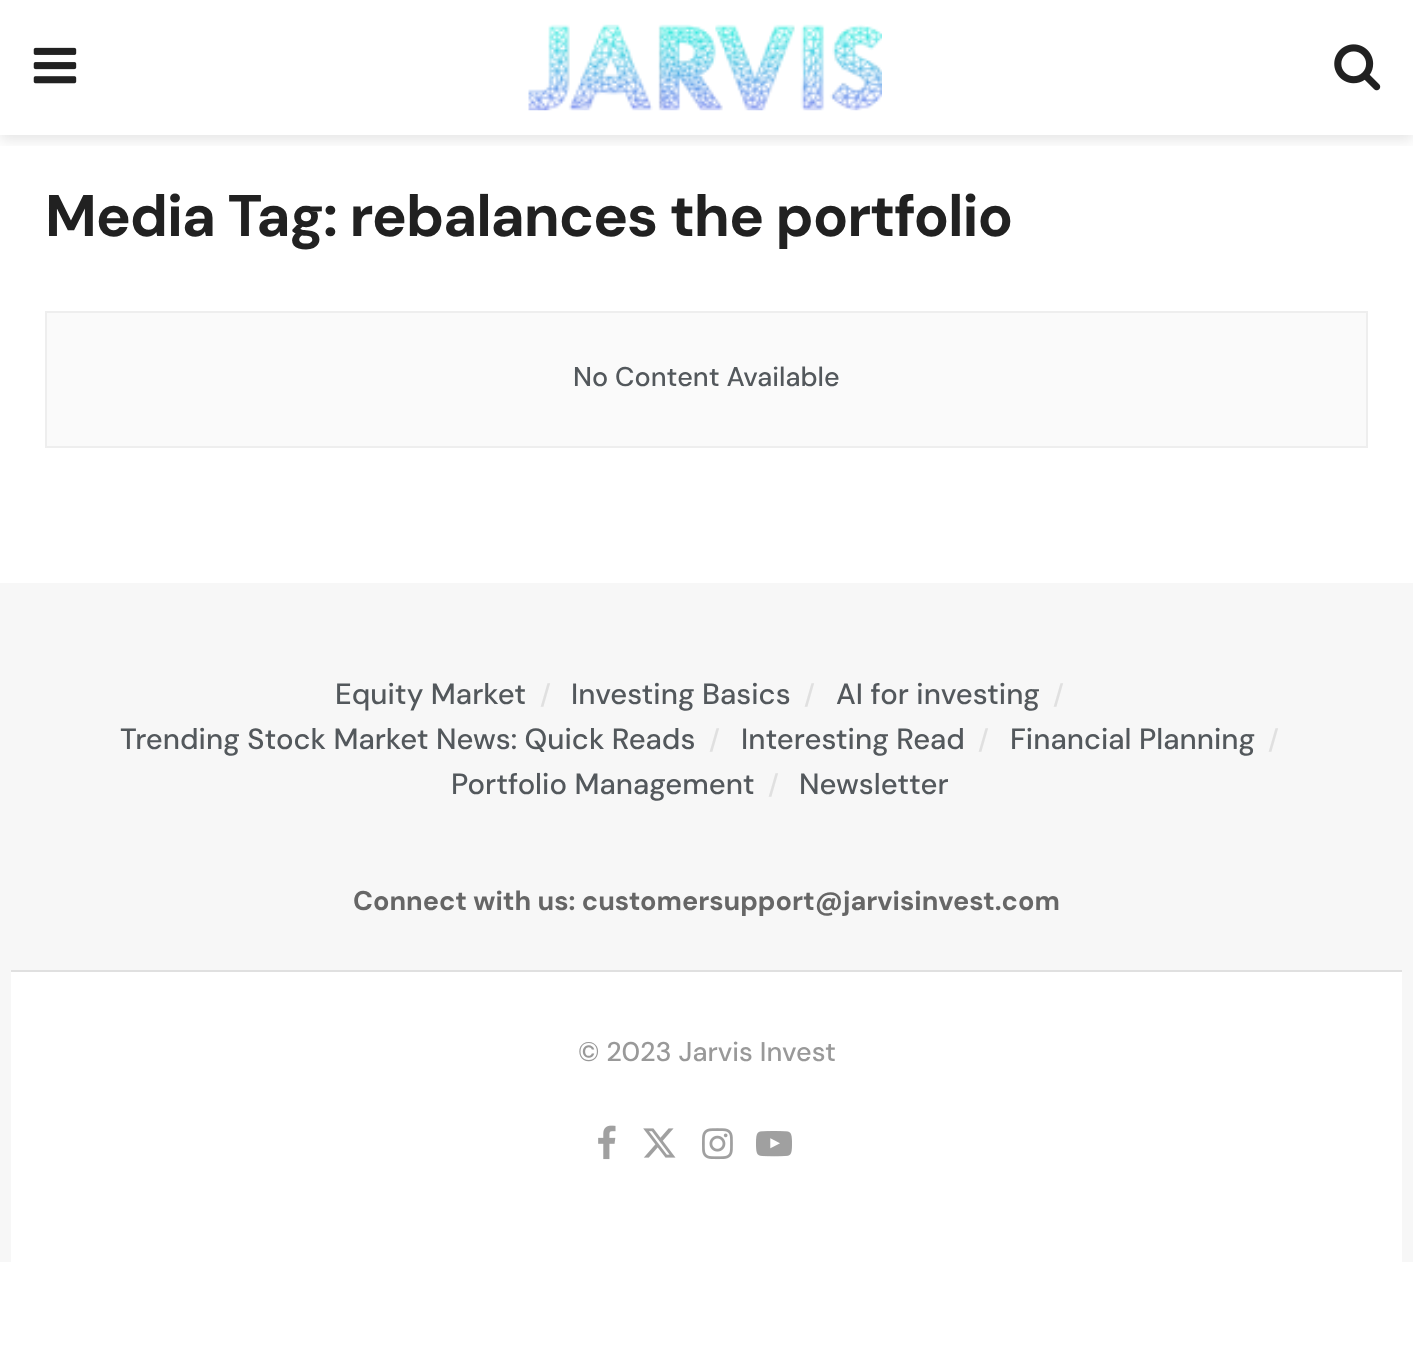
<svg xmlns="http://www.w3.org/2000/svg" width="1413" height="1369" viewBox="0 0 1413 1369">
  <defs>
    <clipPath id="clip1"><rect x="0" y="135" width="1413" height="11"/></clipPath>
  </defs>
  <rect width="100%" height="100%" fill="rgb(255,255,255)"/>
  <g clip-path="url(#clip1)">
    <rect x="0" y="5" width="1413" height="135" fill="rgba(0,0,0,0.1)" filter="blur(7px)"/>
  </g>
  <image x="33" y="47" width="44" height="37" href="pic1.png"/>
  <image x="528" y="24" width="354" height="87" href="pic2.png"/>
  <image x="1334" y="44" width="47" height="47" href="pic3.png"/>
  <text x="45" y="236" font-family="DM Sans" font-size="58.5" font-weight="bold" letter-spacing="-1.15" fill="rgb(33,33,33)">Media Tag: rebalances the portfolio</text>
  <rect x="46" y="312" width="1321" height="135" fill="rgb(250,250,250)" stroke="rgb(238,238,238)" stroke-width="2"/>
  <text x="573" y="386" font-family="DM Sans" font-size="27" font-weight="500" fill="rgb(83,88,92)">No Content Available</text>
  <rect x="0" y="583" width="1413" height="679" fill="rgb(247,247,247)"/>
  <text x="335" y="704" font-family="DM Sans" font-size="29.25" font-weight="500" fill="rgb(83,88,92)">Equity Market</text>
  <text x="540" y="704" font-family="DM Sans" font-size="27" font-weight="500" fill="rgb(224,224,224)">/</text>
  <text x="571" y="704" font-family="DM Sans" font-size="29.25" font-weight="500" fill="rgb(83,88,92)">Investing Basics</text>
  <text x="804" y="704" font-family="DM Sans" font-size="27" font-weight="500" fill="rgb(224,224,224)">/</text>
  <text x="836" y="704" font-family="DM Sans" font-size="29.25" font-weight="500" fill="rgb(83,88,92)">AI for investing</text>
  <text x="1053" y="704" font-family="DM Sans" font-size="27" font-weight="500" fill="rgb(224,224,224)">/</text>
  <text x="120" y="749" font-family="DM Sans" font-size="29.25" font-weight="500" fill="rgb(83,88,92)">Trending Stock Market News: Quick Reads</text>
  <text x="709" y="749" font-family="DM Sans" font-size="27" font-weight="500" fill="rgb(224,224,224)">/</text>
  <text x="741" y="749" font-family="DM Sans" font-size="29.25" font-weight="500" fill="rgb(83,88,92)">Interesting Read</text>
  <text x="978" y="749" font-family="DM Sans" font-size="27" font-weight="500" fill="rgb(224,224,224)">/</text>
  <text x="1010" y="749" font-family="DM Sans" font-size="29.25" font-weight="500" fill="rgb(83,88,92)">Financial Planning</text>
  <text x="1268" y="749" font-family="DM Sans" font-size="27" font-weight="500" fill="rgb(224,224,224)">/</text>
  <text x="451" y="794" font-family="DM Sans" font-size="29.25" font-weight="500" fill="rgb(83,88,92)">Portfolio Management</text>
  <text x="768" y="794" font-family="DM Sans" font-size="27" font-weight="500" fill="rgb(224,224,224)">/</text>
  <text x="799" y="794" font-family="DM Sans" font-size="29.25" font-weight="500" fill="rgb(83,88,92)">Newsletter</text>
  <text x="353" y="910" font-family="DM Sans" font-size="27" font-weight="bold" fill="rgb(102,102,102)">Connect with us: customersupport@jarvisinvest.com</text>
  <rect x="11" y="972" width="1391" height="290" fill="rgb(255,255,255)"/>
  <rect x="11" y="970" width="1391" height="2" fill="rgb(224,224,224)"/>
  <text x="578" y="1061" font-family="DM Sans" font-size="27" font-weight="500" fill="rgb(153,153,153)">© 2023 Jarvis Invest</text>
  <image x="598" y="1125" width="18" height="35" href="pic4.png"/>
  <image x="643" y="1128" width="33" height="30" href="pic5.png"/>
  <image x="702" y="1128" width="31" height="32" href="pic6.png"/>
  <image x="756" y="1131" width="36" height="26" href="pic7.png"/>
</svg>
